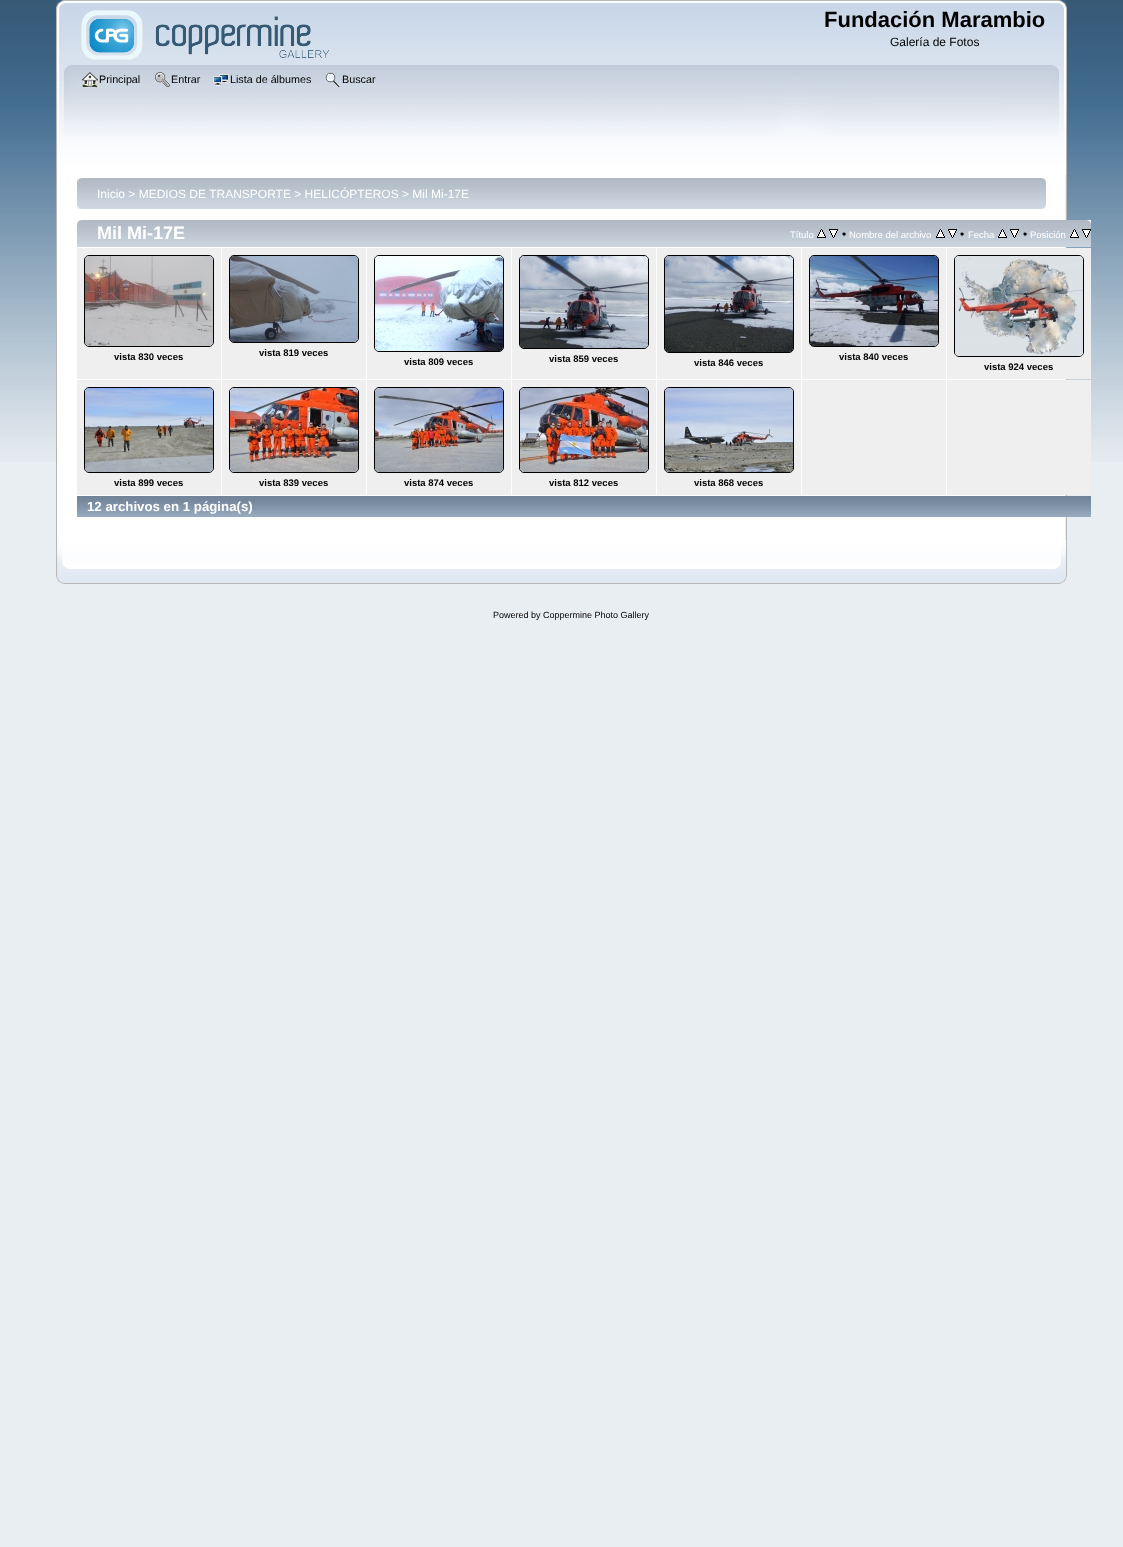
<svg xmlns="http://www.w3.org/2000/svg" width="1123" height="1547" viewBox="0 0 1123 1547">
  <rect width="100%" height="100%" fill="rgb(233,238,242)"/>
  <image x="0" y="0" width="1123" height="462" href="pic1.png"/>
  <image x="56" y="0" width="1003" height="65" href="pic2.png"/>
  <image x="1059" y="0" width="8" height="65" href="pic3.png"/>
  <image x="81" y="10" width="248" height="50" href="pic4.png"/>
  <text x="824" y="27" font-family="Liberation Sans" font-size="22" font-weight="bold" fill="rgb(0,0,0)">Fundación Marambio</text>
  <text x="890" y="46" font-family="Liberation Sans" font-size="12" fill="rgb(0,0,0)">Galería de Fotos</text>
  <image x="56" y="65" width="996" height="110" href="pic5.png"/>
  <image x="1052" y="65" width="15" height="110" href="pic6.png"/>
  <image x="82" y="72" width="16" height="16" href="pic7.png"/>
  <text x="99" y="83" font-family="Liberation Sans" font-size="10.75" fill="rgb(0,0,0)">Principal</text>
  <image x="155" y="72" width="15" height="15" href="pic8.png"/>
  <text x="171" y="83" font-family="Liberation Sans" font-size="10.75" fill="rgb(0,0,0)">Entrar</text>
  <image x="213" y="74" width="16" height="12" href="pic9.png"/>
  <text x="230" y="83" font-family="Liberation Sans" font-size="10.75" fill="rgb(0,0,0)">Lista de álbumes</text>
  <image x="325" y="72" width="16" height="15" href="pic10.png"/>
  <text x="342" y="83" font-family="Liberation Sans" font-size="10.75" fill="rgb(0,0,0)">Buscar</text>
  <rect x="57" y="175" width="1008" height="365" fill="rgb(255,255,255)"/>
  <rect x="56" y="175" width="1" height="365" fill="rgb(183,183,183)"/>
  <image x="1065" y="175" width="2" height="365" href="pic11.png"/>
  <image x="77" y="178" width="964" height="31" href="pic12.png"/>
  <image x="1041" y="178" width="5" height="31" href="pic13.png"/>
  <text x="97" y="198" font-family="Liberation Sans" font-size="12" fill="rgb(255,255,255)">Inicio &gt; MEDIOS DE TRANSPORTE &gt; HELICÓPTEROS &gt; Mil Mi-17E</text>
  <image x="77" y="220" width="1014" height="27" href="pic14.png"/>
  <image x="1086" y="220" width="5" height="4" href="pic15.png"/>
  <text x="97" y="239" font-family="Liberation Sans" font-size="18" font-weight="bold" fill="rgb(255,255,255)">Mil Mi-17E</text>
  <text x="790" y="238" font-family="Liberation Sans" font-size="9.5" fill="rgb(255,255,255)">Título</text>
  <image x="817" y="229" width="9" height="9" href="pic16.png"/>
  <image x="829" y="229" width="9" height="9" href="pic17.png"/>
  <text x="842" y="238" font-family="Liberation Sans" font-size="12" fill="rgb(0,0,0)">•</text>
  <text x="849" y="238" font-family="Liberation Sans" font-size="9.5" fill="rgb(255,255,255)">Nombre del archivo</text>
  <image x="936" y="229" width="9" height="9" href="pic16.png"/>
  <image x="948" y="229" width="9" height="9" href="pic17.png"/>
  <text x="960" y="238" font-family="Liberation Sans" font-size="12" fill="rgb(0,0,0)">•</text>
  <text x="968" y="238" font-family="Liberation Sans" font-size="9.5" fill="rgb(255,255,255)">Fecha</text>
  <image x="998" y="229" width="9" height="9" href="pic16.png"/>
  <image x="1010" y="229" width="9" height="9" href="pic17.png"/>
  <text x="1023" y="238" font-family="Liberation Sans" font-size="12" fill="rgb(0,0,0)">•</text>
  <text x="1030" y="238" font-family="Liberation Sans" font-size="9.5" fill="rgb(255,255,255)">Posición</text>
  <image x="1070" y="229" width="9" height="9" href="pic16.png"/>
  <image x="1082" y="229" width="9" height="9" href="pic17.png"/>
  <rect x="77" y="248" width="144" height="131" fill="rgb(239,239,239)"/>
  <rect x="84.5" y="255.5" width="129" height="91" rx="4.5" fill="none" stroke="rgb(0,0,0)"/>
  <image x="85" y="256" width="128" height="90" href="pic18.png"/>
  <text x="114" y="360" font-family="Liberation Sans" font-size="9.5" font-weight="bold" fill="rgb(0,0,0)">vista 830 veces</text>
  <rect x="222" y="248" width="144" height="131" fill="rgb(239,239,239)"/>
  <rect x="229.5" y="255.5" width="129" height="87" rx="4.5" fill="none" stroke="rgb(0,0,0)"/>
  <image x="230" y="256" width="128" height="86" href="pic19.png"/>
  <text x="259" y="356" font-family="Liberation Sans" font-size="9.5" font-weight="bold" fill="rgb(0,0,0)">vista 819 veces</text>
  <rect x="367" y="248" width="144" height="131" fill="rgb(239,239,239)"/>
  <rect x="374.5" y="255.5" width="129" height="96" rx="4.5" fill="none" stroke="rgb(0,0,0)"/>
  <image x="375" y="256" width="128" height="95" href="pic20.png"/>
  <text x="404" y="365" font-family="Liberation Sans" font-size="9.5" font-weight="bold" fill="rgb(0,0,0)">vista 809 veces</text>
  <rect x="512" y="248" width="144" height="131" fill="rgb(239,239,239)"/>
  <rect x="519.5" y="255.5" width="129" height="93" rx="4.5" fill="none" stroke="rgb(0,0,0)"/>
  <image x="520" y="256" width="128" height="92" href="pic21.png"/>
  <text x="549" y="362" font-family="Liberation Sans" font-size="9.5" font-weight="bold" fill="rgb(0,0,0)">vista 859 veces</text>
  <rect x="657" y="248" width="144" height="131" fill="rgb(239,239,239)"/>
  <rect x="664.5" y="255.5" width="129" height="97" rx="4.5" fill="none" stroke="rgb(0,0,0)"/>
  <image x="665" y="256" width="128" height="96" href="pic22.png"/>
  <text x="694" y="366" font-family="Liberation Sans" font-size="9.5" font-weight="bold" fill="rgb(0,0,0)">vista 846 veces</text>
  <rect x="802" y="248" width="144" height="131" fill="rgb(239,239,239)"/>
  <rect x="809.5" y="255.5" width="129" height="91" rx="4.5" fill="none" stroke="rgb(0,0,0)"/>
  <image x="810" y="256" width="128" height="90" href="pic23.png"/>
  <text x="839" y="360" font-family="Liberation Sans" font-size="9.5" font-weight="bold" fill="rgb(0,0,0)">vista 840 veces</text>
  <rect x="947" y="248" width="144" height="131" fill="rgb(239,239,239)"/>
  <rect x="954.5" y="255.5" width="129" height="101" rx="4.5" fill="none" stroke="rgb(0,0,0)"/>
  <image x="955" y="256" width="128" height="100" href="pic24.png"/>
  <text x="984" y="370" font-family="Liberation Sans" font-size="9.5" font-weight="bold" fill="rgb(0,0,0)">vista 924 veces</text>
  <rect x="77" y="380" width="144" height="115" fill="rgb(239,239,239)"/>
  <rect x="84.5" y="387.5" width="129" height="85" rx="4.5" fill="none" stroke="rgb(0,0,0)"/>
  <image x="85" y="388" width="128" height="84" href="pic25.png"/>
  <text x="114" y="486" font-family="Liberation Sans" font-size="9.5" font-weight="bold" fill="rgb(0,0,0)">vista 899 veces</text>
  <rect x="222" y="380" width="144" height="115" fill="rgb(239,239,239)"/>
  <rect x="229.5" y="387.5" width="129" height="85" rx="4.5" fill="none" stroke="rgb(0,0,0)"/>
  <image x="230" y="388" width="128" height="84" href="pic26.png"/>
  <text x="259" y="486" font-family="Liberation Sans" font-size="9.5" font-weight="bold" fill="rgb(0,0,0)">vista 839 veces</text>
  <rect x="367" y="380" width="144" height="115" fill="rgb(239,239,239)"/>
  <rect x="374.5" y="387.5" width="129" height="85" rx="4.5" fill="none" stroke="rgb(0,0,0)"/>
  <image x="375" y="388" width="128" height="84" href="pic27.png"/>
  <text x="404" y="486" font-family="Liberation Sans" font-size="9.5" font-weight="bold" fill="rgb(0,0,0)">vista 874 veces</text>
  <rect x="512" y="380" width="144" height="115" fill="rgb(239,239,239)"/>
  <rect x="519.5" y="387.5" width="129" height="85" rx="4.5" fill="none" stroke="rgb(0,0,0)"/>
  <image x="520" y="388" width="128" height="84" href="pic28.png"/>
  <text x="549" y="486" font-family="Liberation Sans" font-size="9.5" font-weight="bold" fill="rgb(0,0,0)">vista 812 veces</text>
  <rect x="657" y="380" width="144" height="115" fill="rgb(239,239,239)"/>
  <rect x="664.5" y="387.5" width="129" height="85" rx="4.5" fill="none" stroke="rgb(0,0,0)"/>
  <image x="665" y="388" width="128" height="84" href="pic29.png"/>
  <text x="694" y="486" font-family="Liberation Sans" font-size="9.5" font-weight="bold" fill="rgb(0,0,0)">vista 868 veces</text>
  <rect x="802" y="380" width="144" height="115" fill="rgb(239,239,239)"/>
  <rect x="947" y="380" width="144" height="115" fill="rgb(239,239,239)"/>
  <image x="77" y="496" width="1014" height="21" href="pic30.png"/>
  <text x="87" y="511" font-family="Liberation Sans" font-size="13.25" font-weight="bold" fill="rgb(255,255,255)">12 archivos en 1 página(s)</text>
  <image x="56" y="540" width="998" height="44" href="pic31.png"/>
  <image x="1054" y="540" width="13" height="44" href="pic32.png"/>
  <text x="493" y="618" font-family="Liberation Sans" font-size="9" fill="rgb(0,0,0)">Powered by Coppermine Photo Gallery</text>
</svg>
